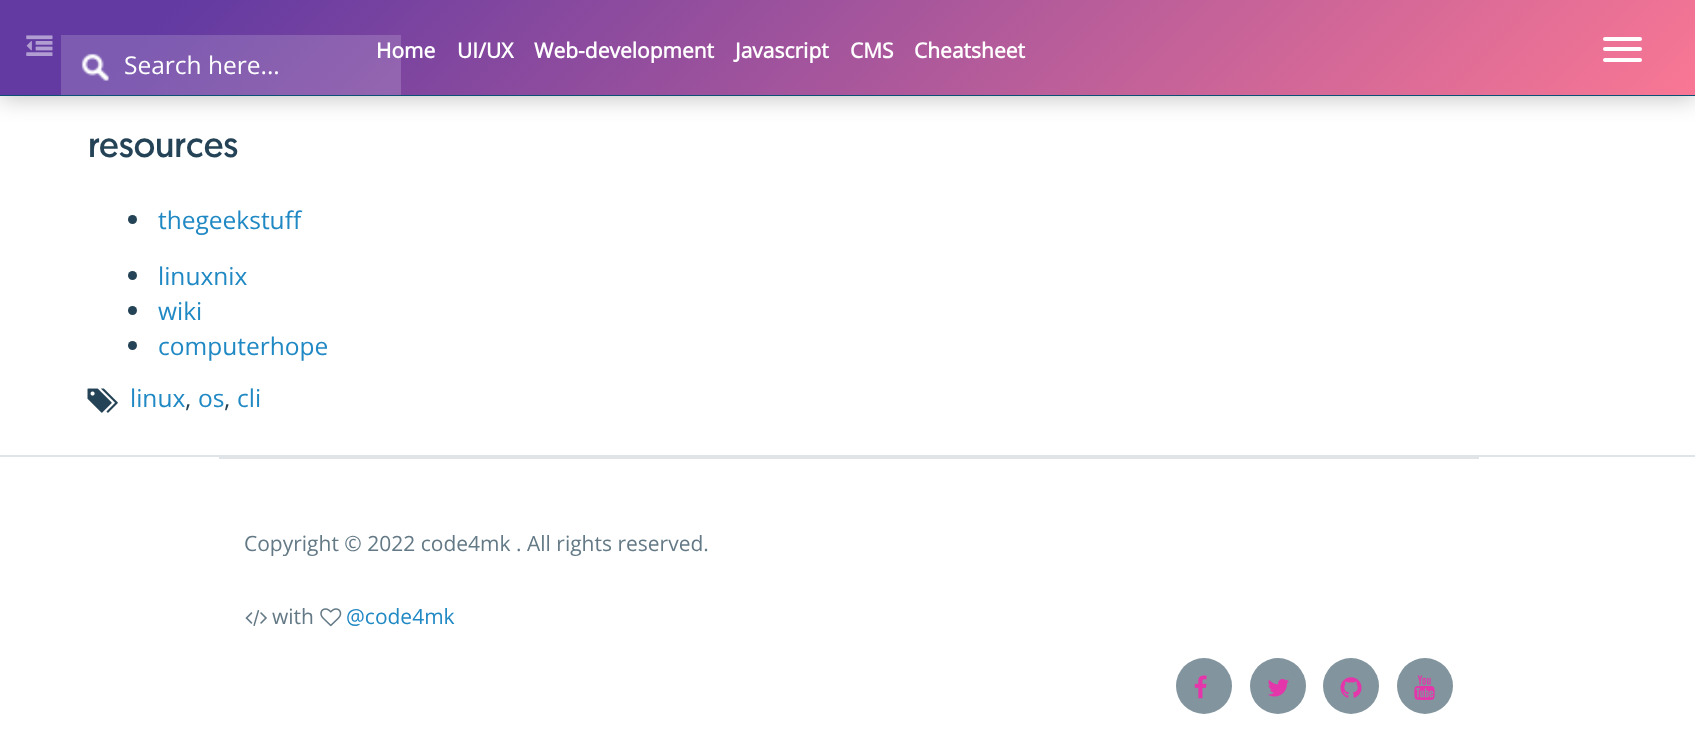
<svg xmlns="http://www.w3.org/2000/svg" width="1695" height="749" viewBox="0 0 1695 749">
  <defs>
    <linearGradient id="g1" gradientUnits="userSpaceOnUse" x1="400" y1="-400" x2="1295" y2="495"><stop offset="0.1" stop-color="rgb(98,58,162)"/><stop offset="1" stop-color="rgb(249,119,148)"/></linearGradient>
  </defs>
  <rect width="100%" height="100%" fill="rgb(255,255,255)"/>
  <rect x="0" y="2" width="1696" height="96" fill="rgba(0,0,0,0.24)" filter="blur(11.5px)"/>
  <rect x="0" y="95" width="1695" height="1" fill="rgb(12,81,118)"/>
  <rect x="0" y="0" width="1695" height="95" fill="url(#g1)"/>
  <image x="26" y="35" width="27" height="21" href="pic1.png"/>
  <g font-family="Open Sans" font-size="21" font-weight="bold" fill="rgb(255,255,255)">
    <text x="376" y="58">Home</text>
    <text x="457" y="58">UI/UX</text>
    <text x="534" y="58">Web-development</text>
    <text x="735" y="58">Javascript</text>
    <text x="850" y="58">CMS</text>
    <text x="914" y="58">Cheatsheet</text>
  </g>
  <rect x="1603" y="37" width="39" height="4" rx="2" fill="rgb(255,255,255)"/>
  <rect x="1603" y="47" width="39" height="4" rx="2" fill="rgb(255,255,255)"/>
  <rect x="1603" y="58" width="39" height="4" rx="2" fill="rgb(255,255,255)"/>
  <rect x="61" y="35" width="340" height="60" fill="rgba(255,255,255,0.17)"/>
  <image x="81" y="53" width="28" height="28" href="pic2.png"/>
  <text x="124" y="74" font-family="Open Sans" font-size="24.5" fill="rgb(255,255,255)">Search here...</text>
  <text x="88" y="157" font-family="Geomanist" font-size="35" fill="rgb(37,67,86)">resources</text>
  <circle cx="132.5" cy="219.5" r="4.5" fill="rgb(37,67,86)"/>
  <text x="158" y="229" font-family="Open Sans" font-size="24.5" fill="rgb(32,137,196)">thegeekstuff</text>
  <circle cx="132.5" cy="275.5" r="4.5" fill="rgb(37,67,86)"/>
  <text x="158" y="285" font-family="Open Sans" font-size="24.5" fill="rgb(32,137,196)">linuxnix</text>
  <circle cx="132.5" cy="310.5" r="4.5" fill="rgb(37,67,86)"/>
  <text x="158" y="320" font-family="Open Sans" font-size="24.5" fill="rgb(32,137,196)">wiki</text>
  <circle cx="132.5" cy="345.5" r="4.5" fill="rgb(37,67,86)"/>
  <text x="158" y="355" font-family="Open Sans" font-size="24.5" fill="rgb(32,137,196)">computerhope</text>
  <image x="87" y="388" width="31" height="25" href="pic3.png"/>
  <text x="130" y="407" font-family="Open Sans" font-size="24.5" fill="rgb(32,137,196)">linux</text>
  <text x="185" y="407" font-family="Open Sans" font-size="24.5" fill="rgb(37,67,86)">,</text>
  <text x="198" y="407" font-family="Open Sans" font-size="24.5" fill="rgb(32,137,196)">os</text>
  <text x="224" y="407" font-family="Open Sans" font-size="24.5" fill="rgb(37,67,86)">,</text>
  <text x="237" y="407" font-family="Open Sans" font-size="24.5" fill="rgb(32,137,196)">cli</text>
  <rect x="0" y="455" width="1695" height="2" fill="rgb(224,228,231)"/>
  <rect x="219" y="457" width="1260" height="2" fill="rgb(224,228,231)"/>
  <text x="244" y="551" font-family="Open Sans" font-size="21" fill="rgb(99,121,134)">Copyright © 2022 code4mk . All rights reserved.</text>
  <image x="245" y="610" width="22" height="16" href="pic4.png"/>
  <text x="272" y="624" font-family="Open Sans" font-size="21" fill="rgb(99,121,134)">with</text>
  <image x="320" y="608" width="22" height="19" href="pic5.png"/>
  <text x="346" y="624" font-family="Open Sans" font-size="21" fill="rgb(32,137,196)">@code4mk</text>
  <circle cx="1204" cy="686" r="28" fill="rgb(130,148,158)"/>
  <image x="1194" y="675" width="13" height="24" href="pic6.png"/>
  <circle cx="1278" cy="686" r="28" fill="rgb(130,148,158)"/>
  <image x="1268" y="679" width="21" height="18" href="pic7.png"/>
  <circle cx="1351" cy="686" r="28" fill="rgb(130,148,158)"/>
  <image x="1340" y="677" width="22" height="21" href="pic8.png"/>
  <circle cx="1425" cy="686" r="28" fill="rgb(130,148,158)"/>
  <image x="1414" y="675" width="21" height="25" href="pic9.png"/>
</svg>
